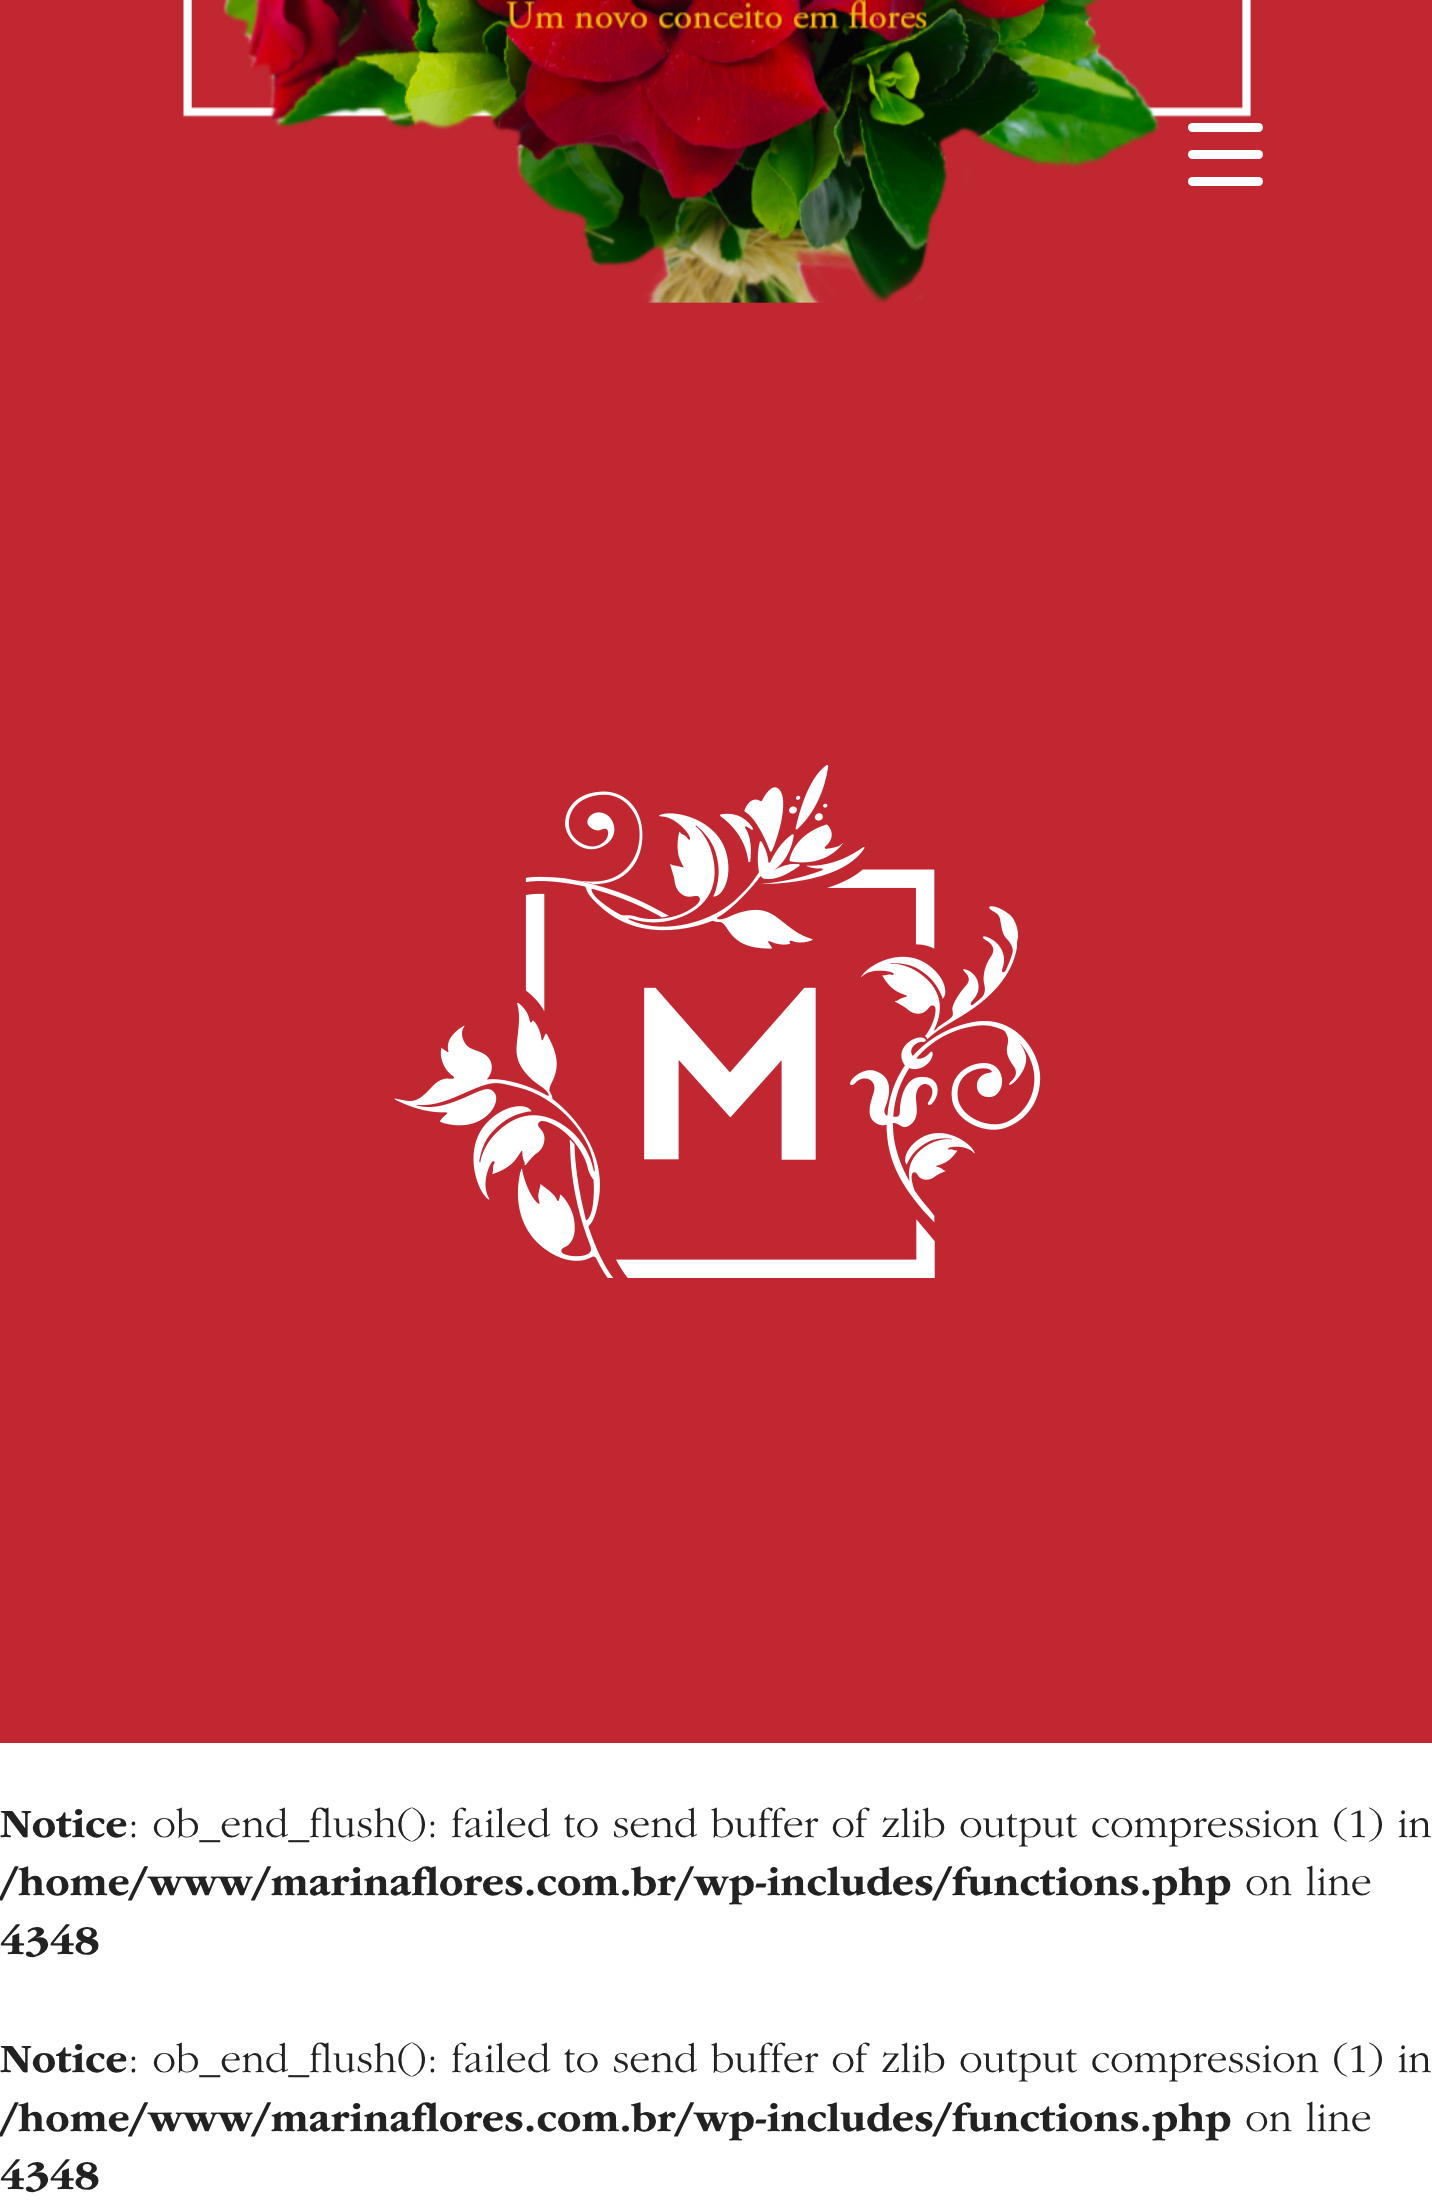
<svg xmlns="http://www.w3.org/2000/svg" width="1432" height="2210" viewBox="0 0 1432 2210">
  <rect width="100%" height="100%" fill="rgb(255,255,255)"/>
  <rect x="0" y="0" width="1432" height="1743" fill="rgb(193,39,49)"/>
  <image x="394" y="765" width="647" height="513" href="pic1.png"/>
  <image x="183" y="0" width="1068" height="303" href="pic2.png"/>
  <rect x="1188" y="150" width="75" height="9" rx="4.5" fill="rgb(255,255,255)"/>
  <rect x="1188" y="123" width="75" height="9" rx="4.5" fill="rgb(255,255,255)"/>
  <rect x="1188" y="177" width="75" height="9" rx="4.5" fill="rgb(255,255,255)"/>
  <text x="0" y="1837" font-family="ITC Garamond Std" font-size="42" font-weight="bold" fill="rgb(34,34,34)">Notice</text>
  <text x="128" y="1837" font-family="ITC Garamond Std" font-size="42" font-weight="300" fill="rgb(34,34,34)">: ob_end_flush(): failed to send buffer of zlib output compression (1) in</text>
  <text x="0" y="1895" font-family="ITC Garamond Std" font-size="42" font-weight="bold" fill="rgb(34,34,34)">/home/www/marinaflores.com.br/wp-includes/functions.php</text>
  <text x="1245" y="1895" font-family="ITC Garamond Std" font-size="42" font-weight="300" fill="rgb(34,34,34)">on line</text>
  <g font-family="ITC Garamond Std" font-size="42" font-weight="bold" fill="rgb(34,34,34)">
    <text x="0" y="1954">4348</text>
    <text x="0" y="2072">Notice</text>
  </g>
  <text x="128" y="2072" font-family="ITC Garamond Std" font-size="42" font-weight="300" fill="rgb(34,34,34)">: ob_end_flush(): failed to send buffer of zlib output compression (1) in</text>
  <text x="0" y="2131" font-family="ITC Garamond Std" font-size="42" font-weight="bold" fill="rgb(34,34,34)">/home/www/marinaflores.com.br/wp-includes/functions.php</text>
  <text x="1245" y="2131" font-family="ITC Garamond Std" font-size="42" font-weight="300" fill="rgb(34,34,34)">on line</text>
  <text x="0" y="2189" font-family="ITC Garamond Std" font-size="42" font-weight="bold" fill="rgb(34,34,34)">4348</text>
</svg>
